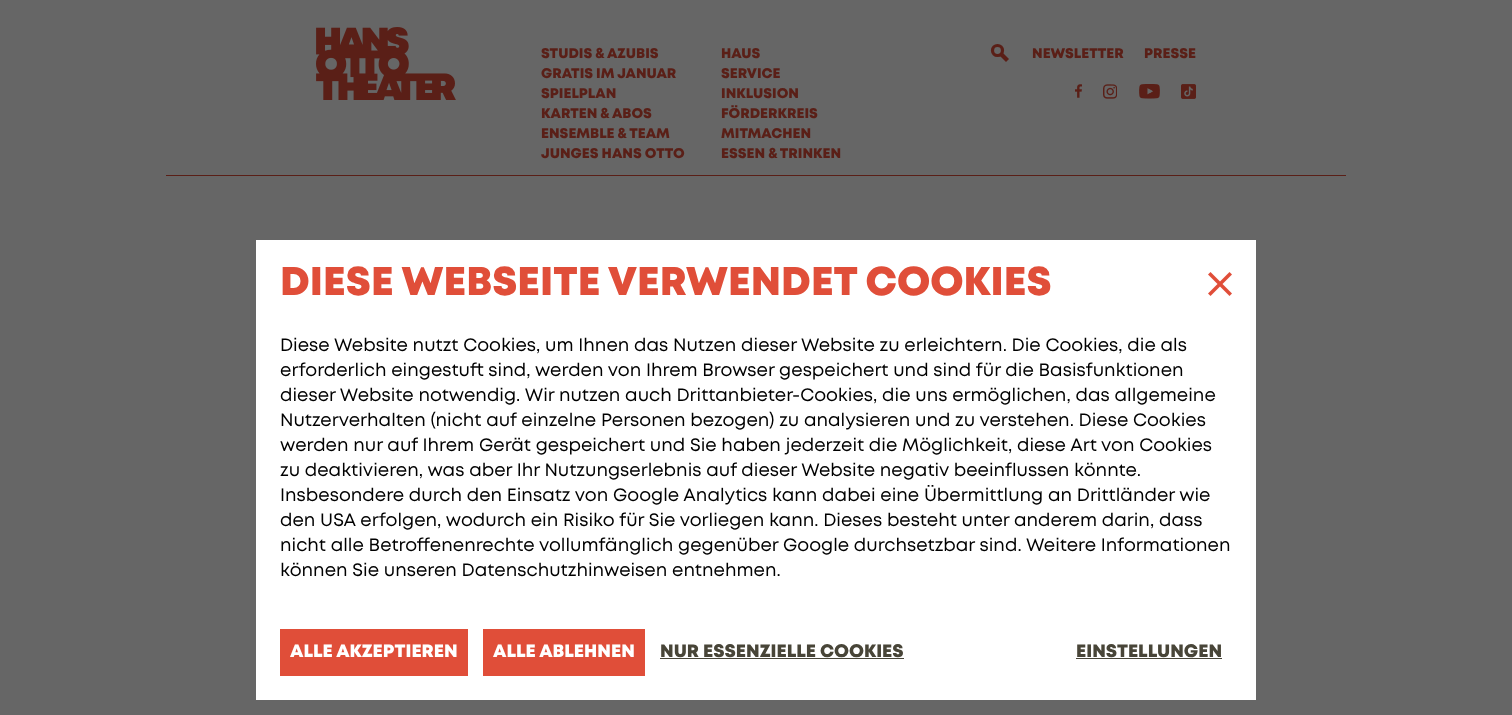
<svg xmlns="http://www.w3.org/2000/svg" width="1512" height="715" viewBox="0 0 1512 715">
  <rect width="100%" height="100%" fill="rgb(102,102,102)"/>
  <rect x="166" y="175" width="1180" height="1" fill="rgb(90,31,23)"/>
  <image x="316" y="27" width="140" height="73" href="pic1.png"/>
  <g font-family="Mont" font-size="14" fill="rgb(90,31,23)">
    <text>
      <tspan x="541" y="58">STUDIS &amp; AZUBIS</tspan>
      <tspan x="541" y="78">GRATIS IM JANUAR</tspan>
      <tspan x="541" y="98">SPIELPLAN</tspan>
      <tspan x="541" y="118">KARTEN &amp; ABOS</tspan>
      <tspan x="541" y="138">ENSEMBLE &amp; TEAM</tspan>
      <tspan x="541" y="158">JUNGES HANS OTTO</tspan>
    </text>
    <text>
      <tspan x="721" y="58">HAUS</tspan>
      <tspan x="721" y="78">SERVICE</tspan>
      <tspan x="721" y="98">INKLUSION</tspan>
      <tspan x="721" y="118">FÖRDERKREIS</tspan>
      <tspan x="721" y="138">MITMACHEN</tspan>
      <tspan x="721" y="158">ESSEN &amp; TRINKEN</tspan>
    </text>
  </g>
  <circle cx="997.5" cy="50.5" r="5" fill="none" stroke="rgb(90,31,23)" stroke-width="3.2"/>
  <path d="M999 55L1002 52L1009 59L1006 62Z" fill="rgb(90,31,23)"/>
  <g font-family="Mont" font-size="14" fill="rgb(90,31,23)">
    <text x="1032" y="58">NEWSLETTER</text>
    <text x="1144" y="58">PRESSE</text>
  </g>
  <image x="1075" y="84" width="7" height="14" href="pic2.png"/>
  <image x="1103" y="84" width="14" height="15" href="pic3.png"/>
  <image x="1139" y="84" width="21" height="15" href="pic4.png"/>
  <image x="1181" y="84" width="15" height="15" href="pic5.png"/>
  <rect x="256" y="240" width="1000" height="460" fill="rgb(255,255,255)"/>
  <text x="280" y="295" font-family="Mont" font-size="40" fill="rgb(224,78,57)">DIESE WEBSEITE VERWENDET COOKIES</text>
  <g font-family="'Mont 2'" font-size="18" fill="rgb(0,0,0)">
    <text>
      <tspan x="280" y="351">Diese Website nutzt Cookies, um Ihnen das Nutzen dieser Website zu erleichtern. Die Cookies, die als</tspan>
      <tspan x="280" y="376">erforderlich eingestuft sind, werden von Ihrem Browser gespeichert und sind für die Basisfunktionen</tspan>
      <tspan x="280" y="401">dieser Website notwendig. Wir nutzen auch Drittanbieter-Cookies, die uns ermöglichen, das allgemeine</tspan>
      <tspan x="280" y="426">Nutzerverhalten (nicht auf einzelne Personen bezogen) zu analysieren und zu verstehen. Diese Cookies</tspan>
      <tspan x="280" y="451">werden nur auf Ihrem Gerät gespeichert und Sie haben jederzeit die Möglichkeit, diese Art von Cookies</tspan>
      <tspan x="280" y="476">zu deaktivieren, was aber Ihr Nutzungserlebnis auf dieser Website negativ beeinflussen könnte.</tspan>
      <tspan x="280" y="501">Insbesondere durch den Einsatz von Google Analytics kann dabei eine Übermittlung an Drittländer wie</tspan>
      <tspan x="280" y="526">den USA erfolgen, wodurch ein Risiko für Sie vorliegen kann. Dieses besteht unter anderem darin, dass</tspan>
      <tspan x="280" y="551">nicht alle Betroffenenrechte vollumfänglich gegenüber Google durchsetzbar sind. Weitere Informationen</tspan>
      <tspan x="280" y="576">können Sie unseren Datenschutzhinweisen entnehmen.</tspan>
    </text>
  </g>
  <rect x="280" y="629" width="188" height="47" fill="rgb(224,78,57)"/>
  <text x="290" y="657" font-family="Mont" font-size="18" fill="rgb(255,255,255)">ALLE AKZEPTIEREN</text>
  <rect x="483" y="629" width="162" height="47" fill="rgb(224,78,57)"/>
  <text x="493" y="657" font-family="Mont" font-size="18" fill="rgb(255,255,255)">ALLE ABLEHNEN</text>
  <text x="660" y="657" font-family="Mont" font-size="18" fill="rgb(72,69,56)">NUR ESSENZIELLE COOKIES</text>
  <rect x="660" y="658" width="244" height="1" fill="rgb(72,69,56)"/>
  <text x="1076" y="657" font-family="Mont" font-size="18" fill="rgb(72,69,56)">EINSTELLUNGEN</text>
  <rect x="1076" y="658" width="146" height="1" fill="rgb(72,69,56)"/>
  <image x="1208" y="272" width="24" height="24" href="pic6.png"/>
</svg>
